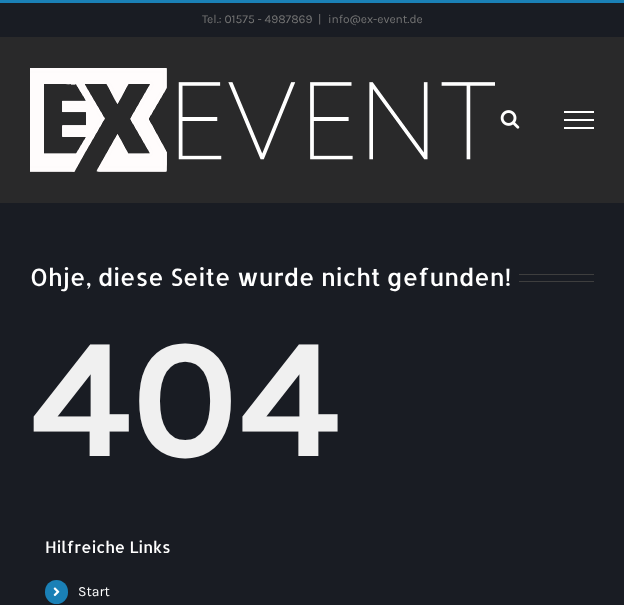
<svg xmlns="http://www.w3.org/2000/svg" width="624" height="605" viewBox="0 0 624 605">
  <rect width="100%" height="100%" fill="rgb(25,28,35)"/>
  <rect x="0" y="0" width="624" height="3" fill="rgb(26,128,182)"/>
  <g font-family="Karla" font-size="12" fill="rgb(116,116,116)">
    <text x="202" y="23">Tel.: 01575 - 4987869</text>
    <text x="318" y="23">|</text>
    <text x="328" y="23">info@ex-event.de</text>
  </g>
  <rect x="0" y="37" width="624" height="166" fill="rgb(41,41,42)"/>
  <image x="30" y="68" width="465" height="104" href="pic1.png"/>
  <image x="500" y="110" width="20" height="19" href="pic2.png"/>
  <rect x="564" y="111" width="30" height="2" fill="rgb(255,255,255)"/>
  <rect x="564" y="119" width="30" height="2" fill="rgb(255,255,255)"/>
  <rect x="564" y="127" width="30" height="2" fill="rgb(255,255,255)"/>
  <text x="30" y="286" font-family="Allerta" font-size="24" fill="rgb(255,255,255)">Ohje, diese Seite wurde nicht gefunden!</text>
  <rect x="519" y="274" width="75" height="1" fill="rgb(62,62,62)"/>
  <rect x="519" y="281" width="75" height="1" fill="rgb(62,62,62)"/>
  <text x="30" y="456" font-family="Karla" font-size="170" font-weight="bold" fill="rgb(240,240,240)">404</text>
  <text x="45" y="553" font-family="Allerta" font-size="16" fill="rgb(255,255,255)">Hilfreiche Links</text>
  <rect x="45" y="580" width="23" height="24" rx="11.5" fill="rgb(26,128,182)"/>
  <image x="53" y="587" width="7" height="10" href="pic3.png"/>
  <text x="78" y="596" font-family="Karla" font-size="14" fill="rgb(255,255,255)">Start</text>
</svg>
